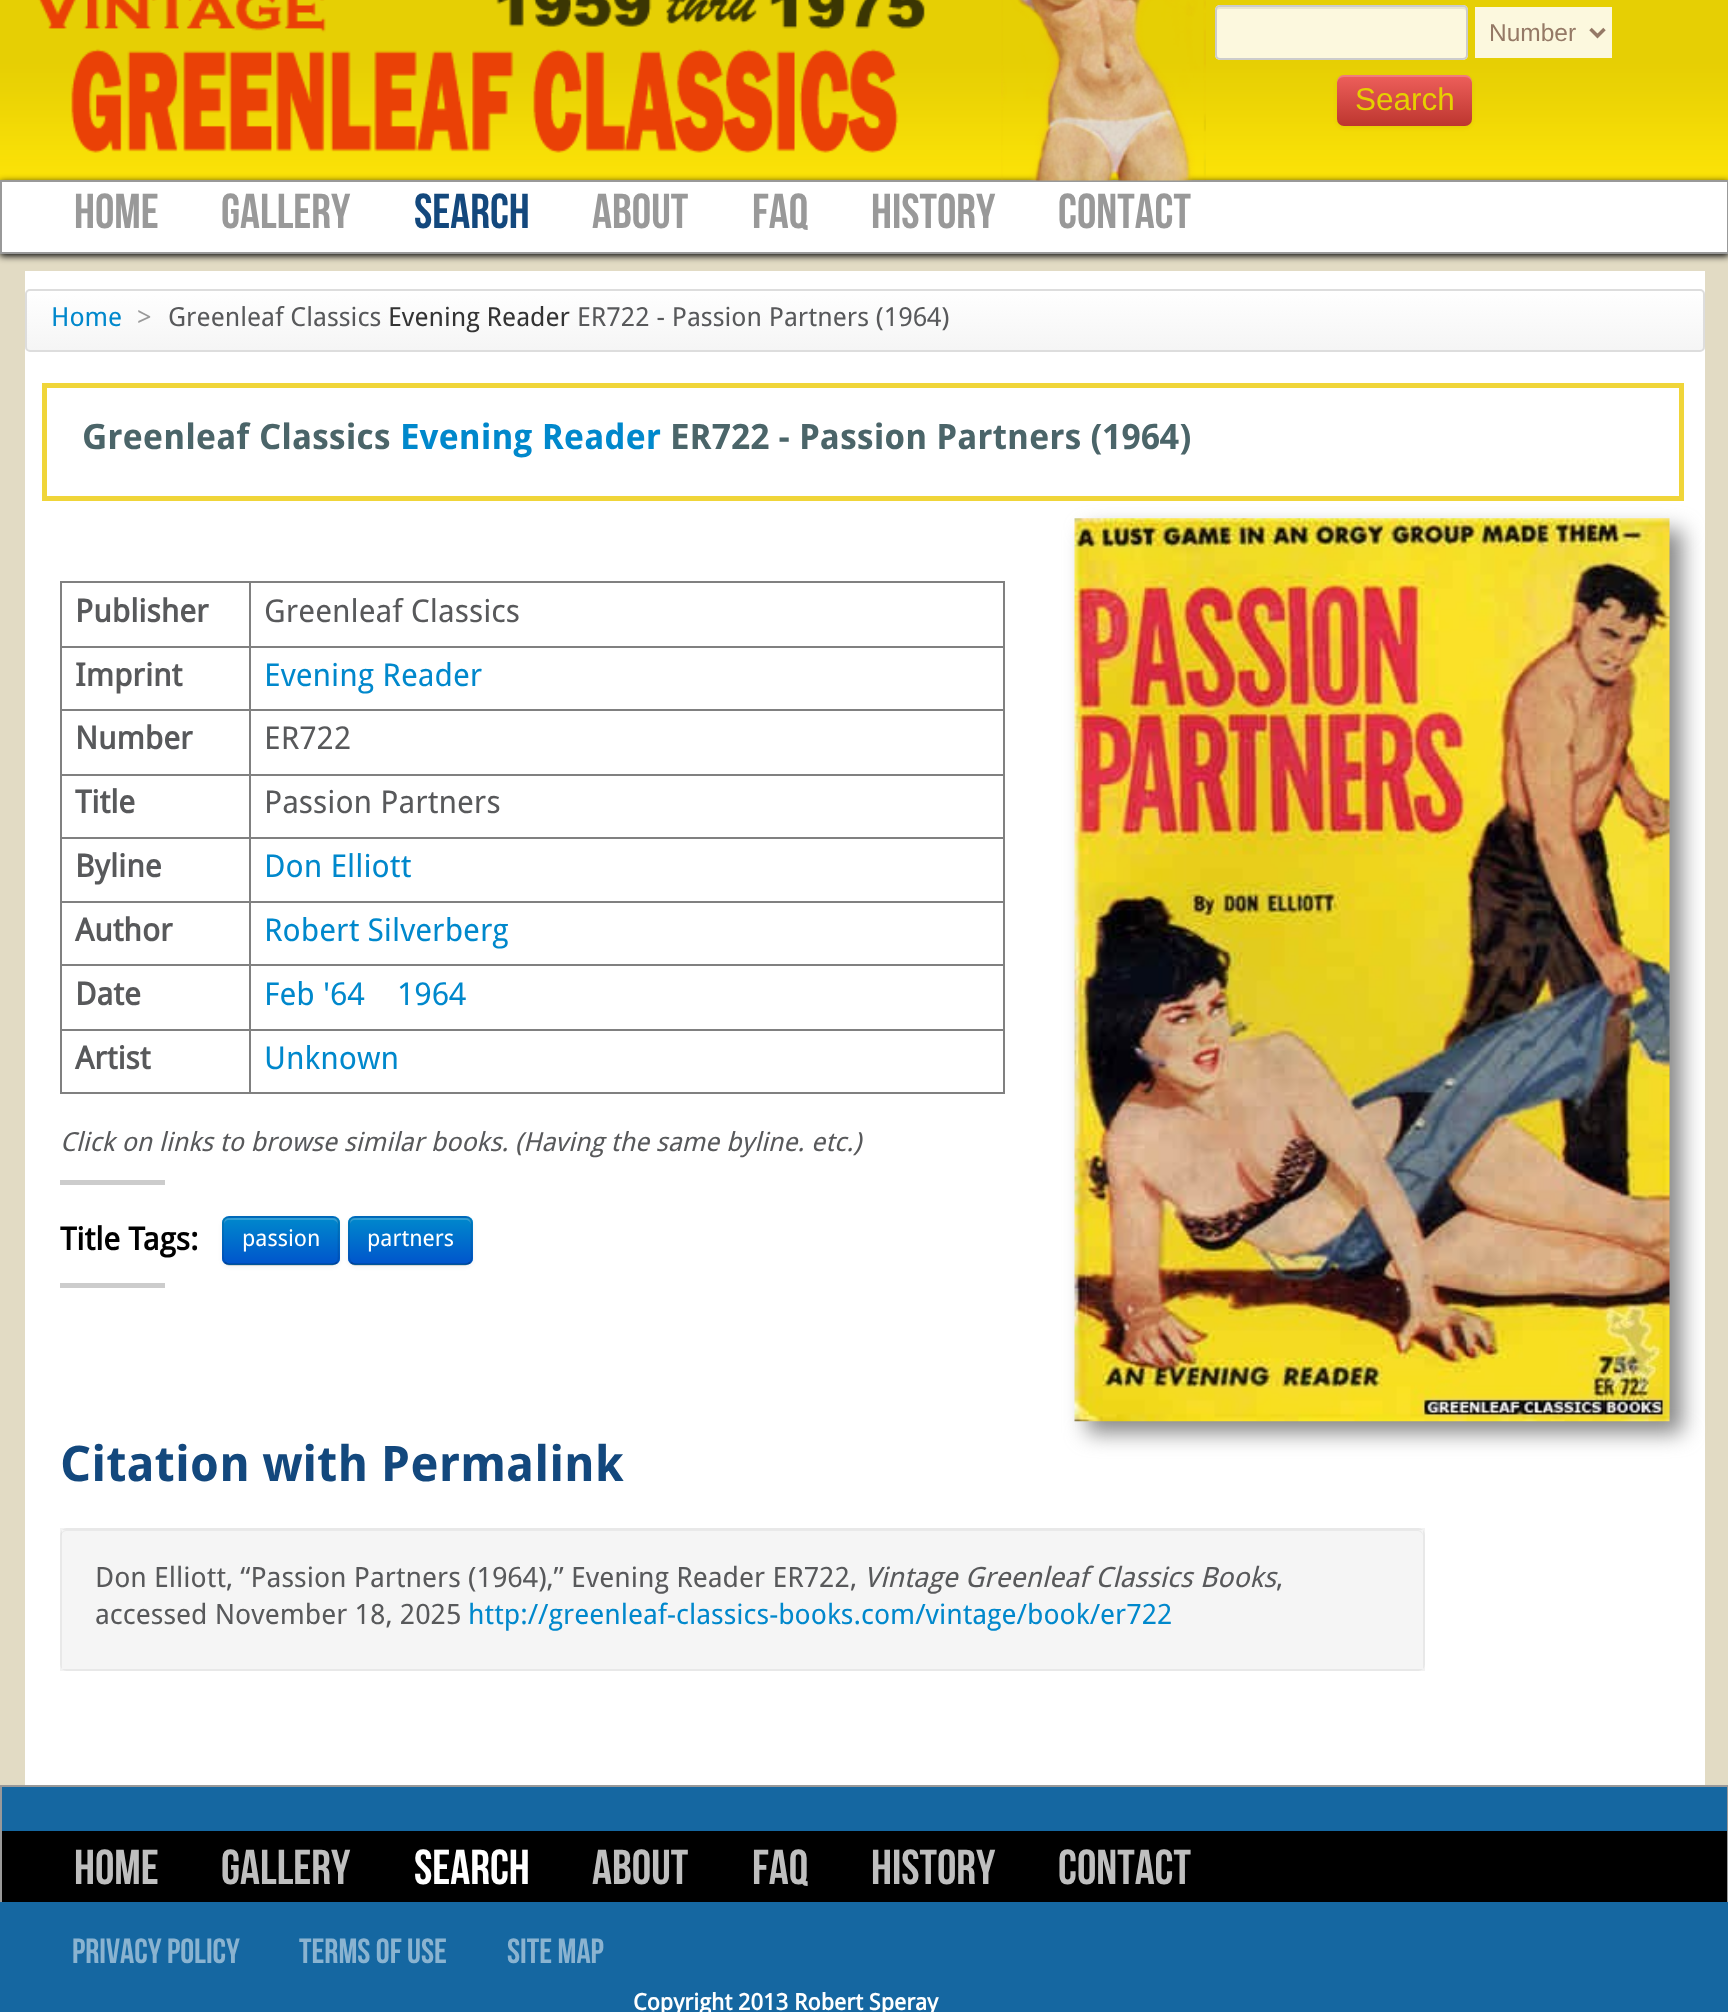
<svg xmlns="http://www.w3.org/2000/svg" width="1728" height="2012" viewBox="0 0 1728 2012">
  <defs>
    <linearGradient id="g1" gradientUnits="userSpaceOnUse" x1="1404" y1="75" x2="1404" y2="126"><stop offset="0" stop-color="rgb(238,95,91)"/><stop offset="1" stop-color="rgb(189,54,47)"/></linearGradient>
    <clipPath id="clip1"><rect x="25" y="289" width="1680" height="63" rx="5"/></clipPath>
    <linearGradient id="g2" gradientUnits="userSpaceOnUse" x1="865" y1="290" x2="865" y2="350"><stop offset="0" stop-color="rgb(255,255,255)"/><stop offset="1" stop-color="rgb(245,245,245)"/></linearGradient>
    <clipPath id="clip2"><rect x="222" y="1216" width="118" height="49" rx="7"/></clipPath>
    <linearGradient id="g3" gradientUnits="userSpaceOnUse" x1="281" y1="1218" x2="281" y2="1264"><stop offset="0" stop-color="rgb(0,136,204)"/><stop offset="1" stop-color="rgb(0,85,204)"/></linearGradient>
    <clipPath id="clip3"><rect x="348" y="1216" width="125" height="49" rx="7"/></clipPath>
    <linearGradient id="g4" gradientUnits="userSpaceOnUse" x1="410" y1="1218" x2="410" y2="1264"><stop offset="0" stop-color="rgb(0,136,204)"/><stop offset="1" stop-color="rgb(0,85,204)"/></linearGradient>
  </defs>
  <rect width="100%" height="100%" fill="rgb(226,219,196)"/>
  <image x="0" y="0" width="1728" height="180" href="pic1.png"/>
  <image x="38" y="0" width="887" height="153" href="pic2.png"/>
  <rect x="0" y="182" width="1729" height="74" fill="rgb(0,0,0)" filter="blur(3.5px)"/>
  <rect x="1" y="181" width="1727" height="72" fill="none" stroke="rgb(153,153,153)" stroke-width="2"/>
  <image x="1001" y="0" width="205" height="181" href="pic3.png"/>
  <rect x="1215" y="5" width="253" height="55" rx="5" fill="rgb(252,248,222)"/>
  <path d="M1220 9H1463C1465 9 1466 10 1466 12V57C1467 56 1467 55 1467 54V11C1467 9 1465 7 1463 7H1220C1218 7 1216 9 1216 11V12C1216 10 1218 9 1220 9Z" fill="rgb(233,229,205)"/>
  <rect x="1216" y="6" width="251" height="53" rx="4" fill="none" stroke="rgb(204,204,204)" stroke-width="2"/>
  <rect x="1475" y="7" width="137" height="51" fill="rgb(252,248,222)"/>
  <path d="M1590.5 29L1597.5 36L1604.5 29" fill="none" stroke="rgb(149,121,102)" stroke-width="3.5"/>
  <text x="1489" y="41" font-family="Liberation Sans" font-size="24.5" fill="rgb(149,121,102)">Number</text>
  <rect x="1337" y="77" width="135" height="51" rx="7" fill="rgba(0,0,0,0.05)" filter="blur(2px)"/>
  <rect x="1337" y="75" width="135" height="51" rx="7" fill="url(#g1)"/>
  <path d="M1344 77H1465C1469 77 1472 80 1472 84V82C1472 78 1469 75 1465 75H1344C1340 75 1337 78 1337 82V84C1337 80 1340 77 1344 77Z" fill="rgba(255,255,255,0.2)"/>
  <text x="1355" y="110" font-family="Liberation Sans" font-size="31.5" fill="rgb(230,208,0)">Search</text>
  <rect x="2" y="182" width="1725" height="70" fill="rgb(255,255,255)"/>
  <g font-family="Bebas Neue" font-size="49" fill="rgb(153,153,153)">
    <text x="74" y="228">HOME</text>
    <text x="221" y="228">GALLERY</text>
  </g>
  <text x="414" y="228" font-family="Bebas Neue" font-size="49" fill="rgb(19,72,125)">SEARCH</text>
  <g font-family="Bebas Neue" font-size="49" fill="rgb(153,153,153)">
    <text x="592" y="228">ABOUT</text>
    <text x="752" y="228">FAQ</text>
    <text x="871" y="228">HISTORY</text>
    <text x="1058" y="228">CONTACT</text>
  </g>
  <rect x="25" y="271" width="1680" height="1514" fill="rgb(255,255,255)"/>
  <g clip-path="url(#clip1)">
    <rect x="25" y="291" width="1680" height="59" fill="url(#g2)"/>
  </g>
  <rect x="26" y="290" width="1678" height="61" rx="4" fill="none" stroke="rgb(221,221,221)" stroke-width="2"/>
  <text x="51" y="326" font-family="Droid Sans" font-size="26.25" fill="rgb(0,136,204)">Home</text>
  <text x="137" y="326" font-family="Droid Sans" font-size="26.25" fill="rgb(153,153,153)">&gt;</text>
  <text x="168" y="326" font-family="Droid Sans" font-size="26.25" fill="rgb(88,89,91)">Greenleaf Classics</text>
  <text x="388" y="326" font-family="Droid Sans" font-size="26.25" fill="rgb(51,51,51)">Evening Reader</text>
  <text x="577" y="326" font-family="Droid Sans" font-size="26.25" fill="rgb(88,89,91)">ER722 - Passion Partners (1964)</text>
  <rect x="44.5" y="385.5" width="1637" height="113" fill="none" stroke="rgb(240,213,57)" stroke-width="5"/>
  <text x="82" y="449" font-family="'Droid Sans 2'" font-size="35" font-weight="bold" fill="rgb(75,101,105)">Greenleaf Classics</text>
  <text x="400" y="449" font-family="'Droid Sans 2'" font-size="35" font-weight="bold" fill="rgb(0,136,204)">Evening Reader</text>
  <text x="670" y="449" font-family="'Droid Sans 2'" font-size="35" font-weight="bold" fill="rgb(75,101,105)">ER722 - Passion Partners (1964)</text>
  <rect x="60" y="581" width="945" height="2" fill="rgb(128,128,128)"/>
  <rect x="1003" y="581" width="2" height="513" fill="rgb(128,128,128)"/>
  <rect x="60" y="1092" width="945" height="2" fill="rgb(128,128,128)"/>
  <rect x="60" y="581" width="2" height="513" fill="rgb(128,128,128)"/>
  <text x="75" y="622" font-family="Droid Sans" font-size="31.5" font-weight="bold" fill="rgb(88,89,91)">Publisher</text>
  <rect x="249" y="646" width="756" height="2" fill="rgb(128,128,128)"/>
  <rect x="249" y="709" width="756" height="2" fill="rgb(128,128,128)"/>
  <rect x="249" y="774" width="756" height="2" fill="rgb(128,128,128)"/>
  <rect x="249" y="837" width="756" height="2" fill="rgb(128,128,128)"/>
  <rect x="249" y="901" width="756" height="2" fill="rgb(128,128,128)"/>
  <rect x="249" y="964" width="756" height="2" fill="rgb(128,128,128)"/>
  <rect x="249" y="1029" width="756" height="2" fill="rgb(128,128,128)"/>
  <rect x="249" y="1029" width="2" height="65" fill="rgb(128,128,128)"/>
  <rect x="60" y="1029" width="190" height="2" fill="rgb(128,128,128)"/>
  <rect x="249" y="964" width="2" height="67" fill="rgb(128,128,128)"/>
  <rect x="60" y="964" width="190" height="2" fill="rgb(128,128,128)"/>
  <rect x="249" y="901" width="2" height="65" fill="rgb(128,128,128)"/>
  <rect x="60" y="901" width="190" height="2" fill="rgb(128,128,128)"/>
  <rect x="249" y="837" width="2" height="66" fill="rgb(128,128,128)"/>
  <rect x="60" y="837" width="190" height="2" fill="rgb(128,128,128)"/>
  <rect x="249" y="774" width="2" height="64" fill="rgb(128,128,128)"/>
  <rect x="60" y="774" width="190" height="2" fill="rgb(128,128,128)"/>
  <rect x="249" y="709" width="2" height="66" fill="rgb(128,128,128)"/>
  <rect x="60" y="709" width="190" height="2" fill="rgb(128,128,128)"/>
  <rect x="249" y="646" width="2" height="65" fill="rgb(128,128,128)"/>
  <rect x="60" y="646" width="190" height="2" fill="rgb(128,128,128)"/>
  <rect x="249" y="581" width="2" height="67" fill="rgb(128,128,128)"/>
  <text x="264" y="622" font-family="Droid Sans" font-size="31.5" fill="rgb(88,89,91)">Greenleaf Classics</text>
  <text x="75" y="686" font-family="Droid Sans" font-size="31.5" font-weight="bold" fill="rgb(88,89,91)">Imprint</text>
  <text x="264" y="686" font-family="Droid Sans" font-size="31.5" fill="rgb(0,136,204)">Evening Reader</text>
  <text x="75" y="749" font-family="Droid Sans" font-size="31.5" font-weight="bold" fill="rgb(88,89,91)">Number</text>
  <text x="264" y="749" font-family="Droid Sans" font-size="31.5" fill="rgb(88,89,91)">ER722</text>
  <text x="75" y="813" font-family="Droid Sans" font-size="31.5" font-weight="bold" fill="rgb(88,89,91)">Title</text>
  <text x="264" y="813" font-family="Droid Sans" font-size="31.5" fill="rgb(88,89,91)">Passion Partners</text>
  <text x="75" y="877" font-family="Droid Sans" font-size="31.5" font-weight="bold" fill="rgb(88,89,91)">Byline</text>
  <text x="264" y="877" font-family="Droid Sans" font-size="31.5" fill="rgb(0,136,204)">Don Elliott</text>
  <text x="75" y="941" font-family="Droid Sans" font-size="31.5" font-weight="bold" fill="rgb(88,89,91)">Author</text>
  <text x="264" y="941" font-family="Droid Sans" font-size="31.5" fill="rgb(0,136,204)">Robert Silverberg</text>
  <text x="75" y="1005" font-family="Droid Sans" font-size="31.5" font-weight="bold" fill="rgb(88,89,91)">Date</text>
  <g font-family="Droid Sans" font-size="31.5" fill="rgb(0,136,204)">
    <text x="264" y="1005">Feb '64</text>
    <text x="397" y="1005">1964</text>
  </g>
  <text x="75" y="1069" font-family="Droid Sans" font-size="31.5" font-weight="bold" fill="rgb(88,89,91)">Artist</text>
  <text x="264" y="1069" font-family="Droid Sans" font-size="31.5" fill="rgb(0,136,204)">Unknown</text>
  <text x="60" y="1151" font-family="Droid Sans" font-size="26.25" font-style="italic" fill="rgb(88,89,91)">Click on links to browse similar books. (Having the same byline. etc.)</text>
  <rect x="60" y="1180" width="105" height="5" fill="rgb(204,204,204)"/>
  <text x="60" y="1250" font-family="Droid Sans" font-size="31.5" font-weight="bold" fill="rgb(0,0,0)">Title Tags:</text>
  <rect x="222" y="1218" width="118" height="49" rx="7" fill="rgba(0,0,0,0.05)" filter="blur(2px)"/>
  <rect x="222" y="1216" width="118" height="49" rx="7" fill="rgb(0,116,204)"/>
  <g clip-path="url(#clip2)">
    <rect x="222" y="1218" width="118" height="46" fill="url(#g3)"/>
  </g>
  <path d="M229 1220H332C335 1220 338 1222 338 1225V1223C338 1220 336 1218 333 1218H229C226 1218 224 1220 224 1223V1225C224 1222 226 1220 229 1220Z" fill="rgba(255,255,255,0.2)"/>
  <path d="M337 1262.5C335.5 1263.5 334 1264.5 332.5 1264.5H229C227.5 1264.5 226 1263.5 225 1262.5" fill="none" stroke="rgba(0,0,0,0.25)" stroke-width="1.8"/>
  <path d="M225 1262.5C222.5 1260 223 1255.5 223 1252.5V1241C223 1214.5 219.5 1217 246.5 1217H315.5C342.5 1217 338.5 1214.5 338.5 1241V1252.5C338.5 1255.5 339.5 1260 337 1262.5" fill="none" stroke="rgba(0,0,0,0.1)" stroke-width="1.8"/>
  <text x="242" y="1246" font-family="Droid Sans" font-size="22.75" fill="rgb(255,255,255)">passion</text>
  <rect x="348" y="1218" width="125" height="49" rx="7" fill="rgba(0,0,0,0.05)" filter="blur(2px)"/>
  <rect x="348" y="1216" width="125" height="49" rx="7" fill="rgb(0,116,204)"/>
  <g clip-path="url(#clip3)">
    <rect x="348" y="1218" width="125" height="46" fill="url(#g4)"/>
  </g>
  <path d="M355 1220H466C468 1220 471 1222 471 1225V1223C471 1220 469 1218 466 1218H355C352 1218 350 1220 350 1223V1225C350 1222 352 1220 355 1220Z" fill="rgba(255,255,255,0.2)"/>
  <path d="M470 1262.5C468.5 1263.5 467 1264.5 465.5 1264.5H355C353.5 1264.5 352 1263.5 351 1262.5" fill="none" stroke="rgba(0,0,0,0.25)" stroke-width="1.8"/>
  <path d="M351 1262.5C348.5 1260 349 1255.5 349 1252.5V1241C349 1214 345.5 1217 373.5 1217H447C475 1217 471.5 1214 471.5 1241V1252.5C471.5 1255.5 472.5 1260 470 1262.5" fill="none" stroke="rgba(0,0,0,0.1)" stroke-width="1.8"/>
  <text x="367" y="1246" font-family="Droid Sans" font-size="22.75" fill="rgb(255,255,255)">partners</text>
  <rect x="60" y="1283" width="105" height="5" fill="rgb(204,204,204)"/>
  <rect x="1087" y="530" width="595" height="903" fill="rgb(136,136,136)" filter="blur(10.5px)"/>
  <image x="1074" y="518" width="596" height="904" href="pic4.png"/>
  <text x="60" y="1481" font-family="'Droid Sans 2'" font-size="49" font-weight="bold" fill="rgb(19,72,125)">Citation with Permalink</text>
  <rect x="60" y="1528" width="1365" height="143" rx="7" fill="rgb(245,245,245)"/>
  <path d="M66 1531H1418C1420 1531 1423 1534 1423 1536C1423 1533 1421 1530 1418 1530H66C63 1530 61 1533 61 1536C61 1534 64 1531 66 1531Z" fill="rgb(233,233,233)"/>
  <rect x="61" y="1529" width="1363" height="141" fill="none" stroke="rgba(0,0,0,0.05)" stroke-width="2"/>
  <text x="95" y="1587" font-family="Droid Sans" font-size="28" fill="rgb(88,89,91)">Don Elliott, “Passion Partners (1964),” Evening Reader ER722,</text>
  <text x="864" y="1587" font-family="Droid Sans" font-size="28" font-style="italic" fill="rgb(88,89,91)">Vintage Greenleaf Classics Books</text>
  <g font-family="Droid Sans" font-size="28" fill="rgb(88,89,91)">
    <text x="1276" y="1587">,</text>
    <text x="95" y="1624">accessed November 18, 2025</text>
  </g>
  <text x="468" y="1624" font-family="Droid Sans" font-size="28" fill="rgb(0,136,204)">http://greenleaf-classics-books.com/vintage/book/er722</text>
  <rect x="2" y="1787" width="1725" height="44" fill="rgb(21,103,161)"/>
  <rect x="1" y="1786" width="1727" height="115" fill="none" stroke="rgb(153,153,153)" stroke-width="2"/>
  <rect x="2" y="1831" width="1725" height="71" fill="rgb(0,0,0)"/>
  <g font-family="Bebas Neue" font-size="49" fill="rgb(191,191,191)">
    <text x="74" y="1884">HOME</text>
    <text x="221" y="1884">GALLERY</text>
  </g>
  <text x="414" y="1884" font-family="Bebas Neue" font-size="49" fill="rgb(255,255,255)">SEARCH</text>
  <g font-family="Bebas Neue" font-size="49" fill="rgb(191,191,191)">
    <text x="592" y="1884">ABOUT</text>
    <text x="752" y="1884">FAQ</text>
    <text x="871" y="1884">HISTORY</text>
    <text x="1058" y="1884">CONTACT</text>
  </g>
  <rect x="0" y="1902" width="1728" height="110" fill="rgb(21,103,161)"/>
  <g font-family="Bebas Neue" font-size="35" fill="rgb(138,179,208)">
    <text x="72" y="1963">PRIVACY POLICY</text>
    <text x="299" y="1963">TERMS OF USE</text>
    <text x="507" y="1963">SITE MAP</text>
  </g>
  <text x="633" y="2010" font-family="Droid Sans" font-size="22.75" font-weight="bold" fill="rgb(255,255,255)">Copyright 2013 Robert Speray</text>
</svg>
